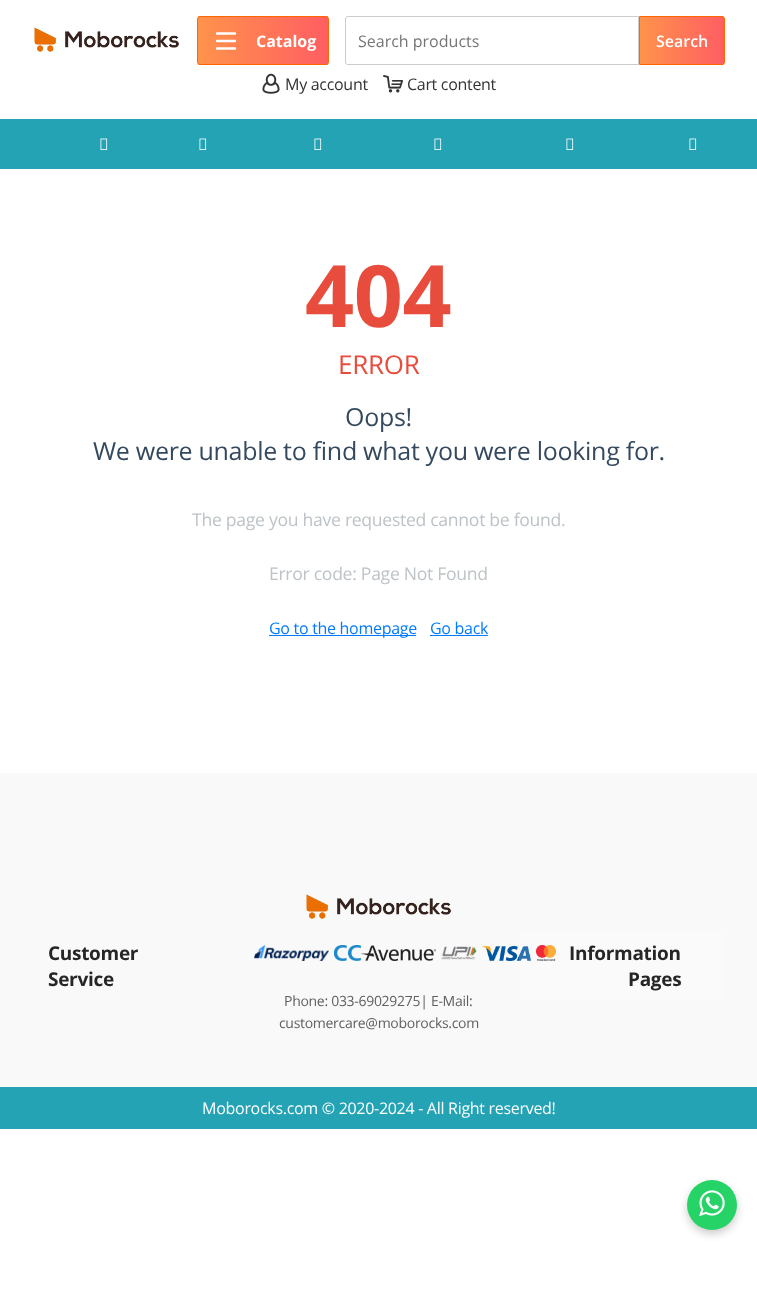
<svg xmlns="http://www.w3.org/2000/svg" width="757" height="1290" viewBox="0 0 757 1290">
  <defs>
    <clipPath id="clip1"><rect x="197" y="16" width="132" height="49" rx="3"/></clipPath>
    <linearGradient id="g1" gradientUnits="userSpaceOnUse" x1="198" y1="41" x2="328" y2="40"><stop offset="0" stop-color="rgb(255,147,75)"/><stop offset="1" stop-color="rgb(255,94,98)"/></linearGradient>
    <clipPath id="clip2"><path d="M639 16H722C723.5 16 725 17.5 725 19V62C725 63.5 723.5 65 722 65H639Z"/></clipPath>
    <linearGradient id="g2" gradientUnits="userSpaceOnUse" x1="640" y1="41" x2="724" y2="41"><stop offset="0" stop-color="rgb(255,147,75)"/><stop offset="1" stop-color="rgb(255,94,98)"/></linearGradient>
  </defs>
  <rect width="100%" height="100%" fill="rgb(255,255,255)"/>
  <image x="34" y="27" width="145" height="25" href="pic1.png"/>
  <g clip-path="url(#clip1)">
    <rect x="198" y="16" width="130" height="49" fill="url(#g1)"/>
  </g>
  <rect x="197.5" y="16.5" width="131" height="48" rx="2.5" fill="none" stroke="rgb(255,102,0)"/>
  <path d="M235 33.5H217M235 41H217M217 48.5H235" fill="none" stroke="rgb(255,255,255)" stroke-width="2.4" stroke-linecap="round"/>
  <text x="256" y="47" font-family="Open Sans" font-size="16" font-weight="bold" fill="rgb(255,255,255)">Catalog</text>
  <path d="M348 16.5H638.5V64.5H348C346.5 64.5 345.5 63.5 345.5 62V19C345.5 17.5 346.5 16.5 348 16.5Z" fill="none" stroke="rgb(204,204,204)"/>
  <text x="358" y="47" font-family="Open Sans" font-size="16" fill="rgb(117,117,117)">Search products</text>
  <g clip-path="url(#clip2)">
    <rect x="640" y="16" width="84" height="49" fill="url(#g2)"/>
  </g>
  <path d="M639.5 16.5H722C723.5 16.5 724.5 17.5 724.5 19V62C724.5 63.5 723.5 64.5 722 64.5H639.5Z" fill="none" stroke="rgb(255,102,0)"/>
  <text x="656" y="47" font-family="Open Sans" font-size="16" font-weight="600" fill="rgb(255,255,255)">Search</text>
  <image x="262" y="73" width="18" height="21" href="pic2.png"/>
  <text x="285" y="90" font-family="Open Sans" font-size="16" letter-spacing="-0.3" fill="rgb(51,51,51)">My account</text>
  <image x="383" y="75" width="20" height="18" href="pic3.png"/>
  <text x="407" y="90" font-family="Open Sans" font-size="16" letter-spacing="-0.3" fill="rgb(51,51,51)">Cart content</text>
  <rect x="0" y="119" width="757" height="50" fill="rgb(36,163,181)"/>
  <image x="100" y="138" width="8" height="12" href="pic4.png"/>
  <image x="199" y="138" width="8" height="12" href="pic4.png"/>
  <image x="314" y="138" width="8" height="12" href="pic4.png"/>
  <image x="434" y="138" width="8" height="12" href="pic4.png"/>
  <image x="566" y="138" width="8" height="12" href="pic4.png"/>
  <image x="689" y="138" width="8" height="12" href="pic4.png"/>
  <text x="305" y="327" font-family="Open Sans" font-size="86" font-weight="bold" letter-spacing="-0.3" fill="rgb(231,76,60)">404</text>
  <text x="338" y="374" font-family="Open Sans" font-size="26" letter-spacing="-0.3" fill="rgb(231,76,60)">ERROR</text>
  <g font-family="Open Sans" font-size="25" letter-spacing="-0.3" fill="rgb(52,73,94)">
    <text x="345" y="426">Oops!</text>
    <text x="93" y="460">We were unable to find what you were looking for.</text>
  </g>
  <g font-family="Open Sans" font-size="17.6" letter-spacing="-0.3" fill="rgb(189,195,199)">
    <text x="192" y="526">The page you have requested cannot be found.</text>
    <text x="269" y="580">Error code: Page Not Found</text>
  </g>
  <rect x="269" y="635" width="147" height="1" fill="rgb(0,123,255)"/>
  <g font-family="Open Sans" font-size="16" letter-spacing="-0.3" fill="rgb(0,123,255)">
    <text x="269" y="634">Go to the homepage</text>
    <text x="430" y="634">Go back</text>
  </g>
  <rect x="430" y="635" width="58" height="1" fill="rgb(0,123,255)"/>
  <rect x="0" y="773" width="757" height="314" fill="rgb(249,249,249)"/>
  <g font-family="Open Sans" font-size="19" font-weight="bold" letter-spacing="-0.3" fill="rgb(38,38,38)">
    <text>
      <tspan x="48" y="960">Customer</tspan>
      <tspan x="48" y="986">Service</tspan>
    </text>
  </g>
  <image x="482" y="946" width="49" height="15" href="pic9.png"/>
  <image x="536" y="945" width="20" height="16" href="pic10.png"/>
  <rect x="519" y="932" width="206" height="68" rx="3" fill="rgba(255,255,255,0.16)"/>
  <g font-family="Open Sans" font-size="19" font-weight="bold" letter-spacing="-0.3" fill="rgb(38,38,38)">
    <text x="569" y="960">Information</text>
    <text x="628" y="986">Pages</text>
  </g>
  <image x="306" y="894" width="145" height="25" href="pic5.png"/>
  <image x="254" y="945" width="75" height="16" href="pic6.png"/>
  <image x="334" y="945" width="102" height="16" href="pic7.png"/>
  <image x="441" y="946" width="36" height="14" href="pic8.png"/>
  <g font-family="Open Sans" font-size="14" letter-spacing="-0.3" fill="rgb(96,96,96)">
    <text x="284" y="1006">Phone: 033-69029275| E-Mail:</text>
    <text x="279" y="1028">customercare@moborocks.com</text>
  </g>
  <rect x="0" y="1087" width="757" height="42" fill="rgb(36,163,181)"/>
  <text x="202" y="1114" font-family="Open Sans" font-size="16" letter-spacing="-0.3" fill="rgb(255,255,255)">Moborocks.com © 2020-2024 - All Right reserved!</text>
  <rect x="687" y="1184" width="50" height="50" rx="25" fill="rgba(0,0,0,0.2)" filter="blur(4px)"/>
  <circle cx="712" cy="1205" r="25" fill="rgb(37,211,102)"/>
  <image x="699" y="1190" width="26" height="27" href="pic11.png"/>
</svg>
